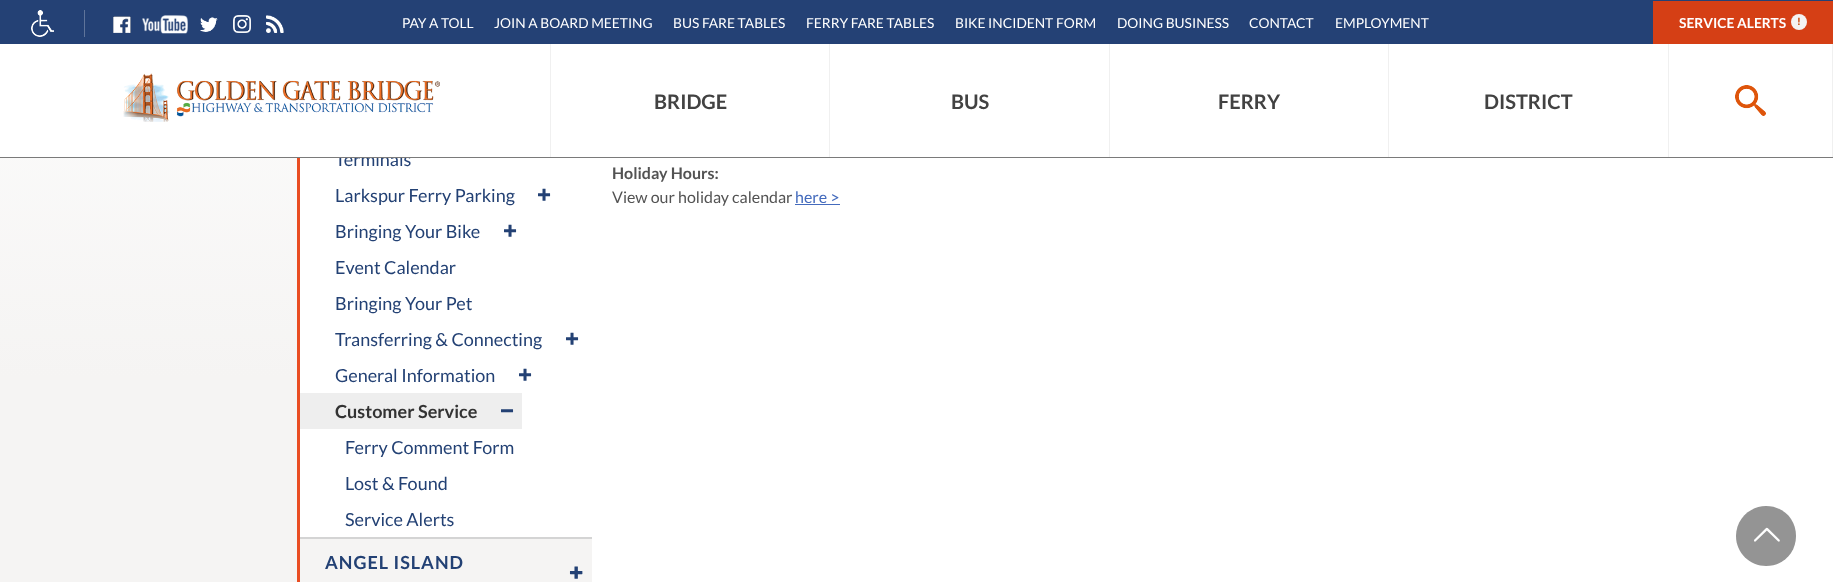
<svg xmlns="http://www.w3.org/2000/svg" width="1833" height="582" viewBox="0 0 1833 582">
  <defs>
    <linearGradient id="g1" gradientUnits="userSpaceOnUse" x1="444" y1="-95" x2="445" y2="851"><stop offset="0" stop-color="rgb(255,255,255)"/><stop offset="0.5" stop-color="rgb(245,244,243)"/><stop offset="1" stop-color="rgb(245,244,243)"/></linearGradient>
    <linearGradient id="g2" gradientUnits="userSpaceOnUse" x1="-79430" y1="-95" x2="-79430" y2="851"><stop offset="0" stop-color="rgb(255,255,255)"/><stop offset="0.5" stop-color="rgb(245,244,243)"/><stop offset="1" stop-color="rgb(245,244,243)"/></linearGradient>
  </defs>
  <rect width="100%" height="100%" fill="rgb(255,255,255)"/>
  <text x="335" y="166" font-family="Lato" font-size="18" fill="rgb(35,65,116)">Terminals</text>
  <rect x="334" y="152" width="75" height="5" fill="rgb(255,255,255)"/>
  <rect x="0" y="157" width="1833" height="1" fill="rgb(122,122,122)"/>
  <rect x="0" y="0" width="1833" height="44" fill="rgb(36,65,117)"/>
  <image x="31" y="10" width="23" height="27" href="pic1.png"/>
  <rect x="84" y="10" width="1" height="27" fill="rgb(95,116,154)"/>
  <image x="113" y="16" width="18" height="17" href="pic2.png"/>
  <image x="142" y="15" width="46" height="19" href="pic3.png"/>
  <image x="200" y="17" width="18" height="15" href="pic4.png"/>
  <image x="233" y="15" width="18" height="18" href="pic5.png"/>
  <image x="266" y="15" width="18" height="18" href="pic6.png"/>
  <g font-family="Lato" font-size="13.75" fill="rgb(255,255,255)">
    <text x="402" y="28">PAY A TOLL</text>
    <text x="494" y="28">JOIN A BOARD MEETING</text>
    <text x="673" y="28">BUS FARE TABLES</text>
    <text x="806" y="28">FERRY FARE TABLES</text>
    <text x="955" y="28">BIKE INCIDENT FORM</text>
    <text x="1117" y="28">DOING BUSINESS</text>
    <text x="1249" y="28">CONTACT</text>
    <text x="1335" y="28">EMPLOYMENT</text>
  </g>
  <rect x="1653" y="1" width="180" height="43" fill="rgb(213,63,21)"/>
  <text x="1679" y="28" font-family="Lato" font-size="13.75" font-weight="bold" fill="rgb(255,255,255)">SERVICE ALERTS</text>
  <circle cx="1799" cy="22" r="8" fill="rgb(244,243,243)"/>
  <text x="1797" y="25" font-family="Lato" font-size="10" font-weight="900" fill="rgb(202,79,18)">!</text>
  <image x="123" y="73" width="317" height="49" href="pic7.png"/>
  <rect x="550" y="44" width="1" height="113" fill="rgb(240,240,240)"/>
  <text x="654" y="109" font-family="Lato" font-size="20" font-weight="bold" fill="rgb(66,66,66)">BRIDGE</text>
  <rect x="829" y="44" width="1" height="113" fill="rgb(240,240,240)"/>
  <text x="951" y="109" font-family="Lato" font-size="20" font-weight="bold" fill="rgb(66,66,66)">BUS</text>
  <rect x="1109" y="44" width="1" height="113" fill="rgb(240,240,240)"/>
  <text x="1218" y="109" font-family="Lato" font-size="20" font-weight="bold" fill="rgb(66,66,66)">FERRY</text>
  <rect x="1388" y="44" width="1" height="113" fill="rgb(240,240,240)"/>
  <text x="1484" y="109" font-family="Lato" font-size="20" font-weight="bold" fill="rgb(66,66,66)">DISTRICT</text>
  <image x="1735" y="85" width="31" height="31" href="pic8.png"/>
  <rect x="1832" y="44" width="1" height="113" fill="rgb(240,240,240)"/>
  <rect x="1668" y="44" width="1" height="113" fill="rgb(240,240,240)"/>
  <rect x="300" y="539" width="292" height="43" fill="url(#g1)"/>
  <rect x="0" y="158" width="297" height="424" fill="url(#g2)"/>
  <rect x="297" y="158" width="3" height="424" fill="rgb(233,77,34)"/>
  <rect x="300" y="537" width="292" height="2" fill="rgb(212,212,212)"/>
  <text x="335" y="202" font-family="Lato" font-size="18" fill="rgb(35,65,116)">Larkspur Ferry Parking</text>
  <text x="538" y="200" font-family="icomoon" font-size="12" fill="rgb(35,65,116)">+</text>
  <text x="335" y="238" font-family="Lato" font-size="18" fill="rgb(35,65,116)">Bringing Your Bike</text>
  <text x="504" y="236" font-family="icomoon" font-size="12" fill="rgb(35,65,116)">+</text>
  <g font-family="Lato" font-size="18" fill="rgb(35,65,116)">
    <text x="335" y="274">Event Calendar</text>
    <text x="335" y="310">Bringing Your Pet</text>
    <text x="335" y="346">Transferring &amp; Connecting</text>
  </g>
  <text x="566" y="344" font-family="icomoon" font-size="12" fill="rgb(35,65,116)">+</text>
  <text x="335" y="382" font-family="Lato" font-size="18" fill="rgb(35,65,116)">General Information</text>
  <text x="519" y="380" font-family="icomoon" font-size="12" fill="rgb(35,65,116)">+</text>
  <rect x="300" y="393" width="222" height="36" fill="rgb(238,238,238)"/>
  <text x="335" y="418" font-family="Lato" font-size="18" font-weight="bold" fill="rgb(51,51,51)">Customer Service</text>
  <text x="501" y="416" font-family="icomoon" font-size="12" fill="rgb(35,65,116)">-</text>
  <g font-family="Lato" font-size="18" fill="rgb(35,65,116)">
    <text x="345" y="454">Ferry Comment Form</text>
    <text x="345" y="490">Lost &amp; Found</text>
    <text x="345" y="526">Service Alerts</text>
  </g>
  <text x="325" y="569" font-family="Lato" font-size="18" font-weight="bold" letter-spacing="1" fill="rgb(35,65,116)">ANGEL ISLAND</text>
  <text x="570" y="578" font-family="icomoon" font-size="12" font-weight="bold" letter-spacing="1" fill="rgb(35,65,116)">+</text>
  <text x="612" y="179" font-family="Lato" font-size="16" font-weight="bold" fill="rgb(83,83,83)">Holiday Hours:</text>
  <text x="612" y="203" font-family="Lato" font-size="16" fill="rgb(83,83,83)">View our holiday calendar</text>
  <text x="795" y="203" font-family="Lato" font-size="16" fill="rgb(68,107,189)">here &gt;</text>
  <rect x="795" y="204" width="45" height="1" fill="rgb(68,107,189)"/>
  <path d="M1736 536C1736 519 1750 506 1766 506C1783 506 1796 519 1796 536C1796 553 1783 566 1766 566C1750 566 1736 553 1736 536Z" fill="rgb(148,148,148)"/>
  <text x="1780" y="550" transform="rotate(-90 1780 550)" font-family="icomoon" font-size="30" fill="rgb(255,255,255)">〉</text>
</svg>
